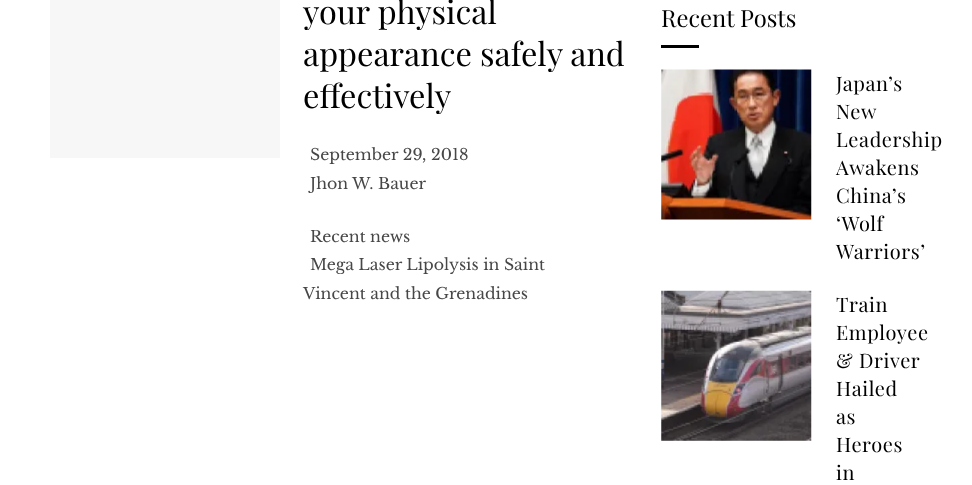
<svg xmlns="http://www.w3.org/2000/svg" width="972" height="485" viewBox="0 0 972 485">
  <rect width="100%" height="100%" fill="rgb(255,255,255)"/>
  <rect x="50" y="0" width="230" height="158" fill="rgb(247,247,247)"/>
  <g font-family="Playfair Display" font-size="32.5" fill="rgb(0,0,0)">
    <text>
      <tspan x="303" y="24">your physical</tspan>
      <tspan x="303" y="66">appearance safely and</tspan>
      <tspan x="303" y="108">effectively</tspan>
    </text>
  </g>
  <g font-family="Libre Baskerville" font-size="15.75" fill="rgb(71,71,71)">
    <text>
      <tspan x="310" y="160">September 29, 2018</tspan>
      <tspan x="310" y="189">Jhon W. Bauer</tspan>
    </text>
    <text>
      <tspan x="310" y="242">Recent news</tspan>
      <tspan x="310" y="270">Mega Laser Lipolysis in Saint</tspan>
    </text>
    <text x="303" y="299">Vincent and the Grenadines</text>
  </g>
  <text x="661" y="27" font-family="Playfair Display" font-size="23.75" fill="rgb(0,0,0)">Recent Posts</text>
  <rect x="661" y="45" width="38" height="3" fill="rgb(0,0,0)"/>
  <image x="661" y="69" width="151" height="151" href="pic1.png"/>
  <g font-family="Playfair Display" font-size="20" letter-spacing="0.6" fill="rgb(0,0,0)">
    <text>
      <tspan x="836" y="91">Japan’s</tspan>
      <tspan x="836" y="119">New</tspan>
      <tspan x="836" y="147">Leadership</tspan>
      <tspan x="836" y="175">Awakens</tspan>
      <tspan x="836" y="203">China’s</tspan>
      <tspan x="836" y="231">‘Wolf</tspan>
      <tspan x="836" y="259">Warriors’</tspan>
    </text>
  </g>
  <image x="661" y="290" width="151" height="151" href="pic2.png"/>
  <g font-family="Playfair Display" font-size="20" letter-spacing="0.6" fill="rgb(0,0,0)">
    <text>
      <tspan x="836" y="312">Train</tspan>
      <tspan x="836" y="340">Employee</tspan>
      <tspan x="836" y="368">&amp; Driver</tspan>
      <tspan x="836" y="396">Hailed</tspan>
      <tspan x="836" y="424">as</tspan>
      <tspan x="836" y="452">Heroes</tspan>
      <tspan x="836" y="480">in</tspan>
    </text>
  </g>
</svg>
